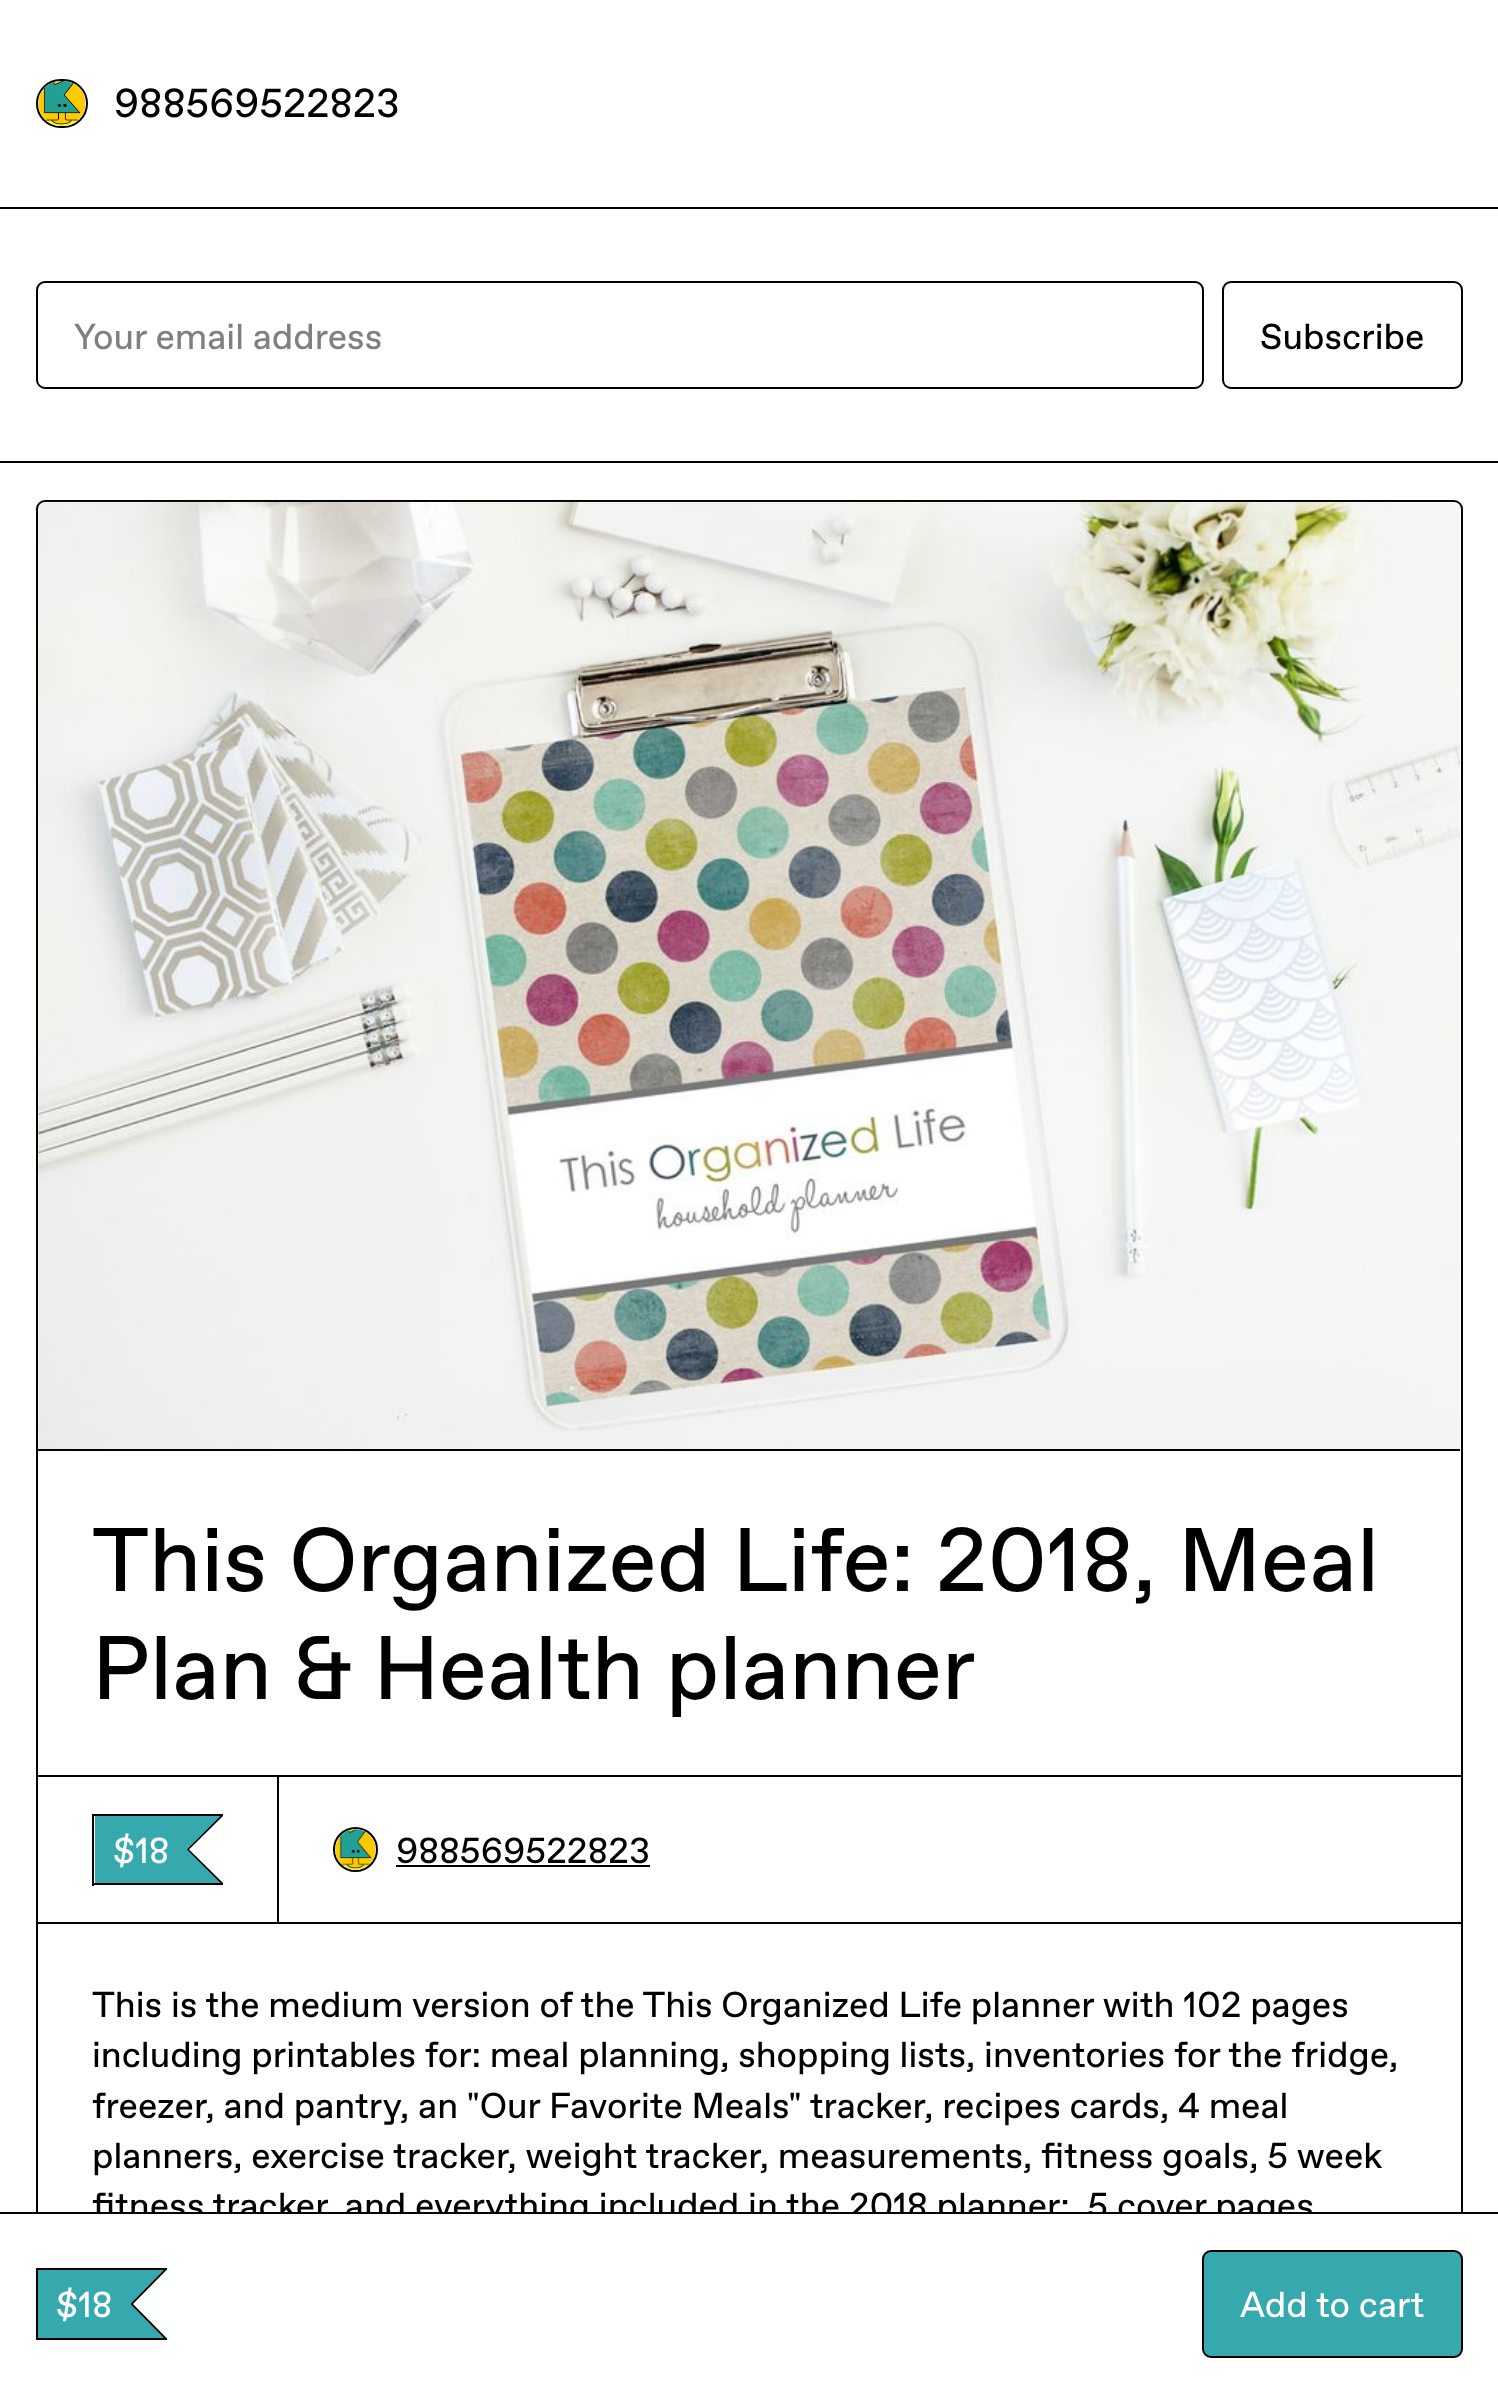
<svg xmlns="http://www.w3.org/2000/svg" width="1498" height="2393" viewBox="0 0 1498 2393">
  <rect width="100%" height="100%" fill="rgb(255,255,255)"/>
  <rect x="0" y="207" width="1498" height="2" fill="rgb(0,0,0)"/>
  <rect x="37" y="80" width="50" height="47" rx="23.5" fill="none" stroke="rgb(0,0,0)" stroke-width="2"/>
  <image x="38" y="81" width="48" height="45" href="pic1.png"/>
  <text x="114" y="117" font-family="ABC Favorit" font-size="40.5" fill="rgb(0,0,0)">988569522823</text>
  <rect x="0" y="461" width="1498" height="2" fill="rgb(0,0,0)"/>
  <rect x="37" y="282" width="1166" height="106" rx="8" fill="none" stroke="rgb(0,0,0)" stroke-width="2"/>
  <text x="74" y="349" font-family="ABC Favorit" font-size="36" fill="rgb(128,128,128)">Your email address</text>
  <rect x="1223" y="282" width="239" height="106" rx="8" fill="none" stroke="rgb(0,0,0)" stroke-width="2"/>
  <text x="1260" y="349" font-family="ABC Favorit" font-size="36" fill="rgb(0,0,0)">Subscribe</text>
  <rect x="37" y="501" width="1425" height="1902" rx="8" fill="none" stroke="rgb(0,0,0)" stroke-width="2"/>
  <rect x="38" y="1449" width="1422" height="2" fill="rgb(0,0,0)"/>
  <image x="38" y="501" width="1422" height="948" href="pic2.png"/>
  <g font-family="ABC Favorit" font-size="90" fill="rgb(0,0,0)">
    <text>
      <tspan x="92" y="1591">This Organized Life: 2018, Meal</tspan>
      <tspan x="92" y="1699">Plan &amp; Health planner</tspan>
    </text>
  </g>
  <rect x="37" y="1776" width="241" height="147" fill="none" stroke="rgb(0,0,0)" stroke-width="2"/>
  <rect x="92" y="1814" width="131" height="2" fill="rgb(0,0,0)"/>
  <rect x="92" y="1883" width="131" height="2" fill="rgb(0,0,0)"/>
  <rect x="92" y="1814" width="2" height="72" fill="rgb(0,0,0)"/>
  <rect x="95" y="1816" width="92" height="67" fill="rgb(54,169,174)"/>
  <path d="M187 1816H223L189 1849.5Z" fill="rgb(0,0,0)"/>
  <path d="M223 1883H187L189 1849.5Z" fill="rgb(0,0,0)"/>
  <rect x="187" y="1847" width="2" height="5" fill="rgb(0,0,0)"/>
  <path d="M184.5 1816H220.5L187 1849.5Z" fill="rgb(54,169,174)"/>
  <path d="M220.5 1883H184.5L187 1849.5Z" fill="rgb(54,169,174)"/>
  <text x="113" y="1863" font-family="ABC Favorit" font-size="36" fill="rgb(255,255,255)">$18</text>
  <rect x="278" y="1776" width="1184" height="147" fill="none" stroke="rgb(0,0,0)" stroke-width="2"/>
  <circle cx="355.5" cy="1849.5" r="21.5" fill="none" stroke="rgb(0,0,0)" stroke-width="2"/>
  <image x="335" y="1829" width="41" height="41" href="pic3.png"/>
  <text x="396" y="1863" font-family="ABC Favorit" font-size="36" fill="rgb(0,0,0)">988569522823</text>
  <rect x="396" y="1865" width="254" height="2" fill="rgb(0,0,0)"/>
  <g font-family="ABC Favorit" font-size="36" fill="rgb(0,0,0)">
    <text xml:space="preserve"><tspan x="92" y="2017">This is the medium version of the This Organized Life planner with 102 pages</tspan><tspan x="92" y="2067">including printables for: meal planning, shopping lists, inventories for the fridge,</tspan><tspan x="92" y="2118">freezer, and pantry, an "Our Favorite Meals" tracker, recipes cards, 4 meal</tspan><tspan x="92" y="2168">planners, exercise tracker, weight tracker, measurements, fitness goals, 5 week</tspan><tspan x="92" y="2218">fitness tracker, and everything included in the 2018 planner:  5 cover pages</tspan></text>
  </g>
  <path d="M0 2212V2214H1498V2392H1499V2212Z" fill="rgb(0,0,0)"/>
  <rect x="36" y="2214" width="1427" height="179" fill="rgb(255,255,255)"/>
  <rect x="36" y="2268" width="131" height="2" fill="rgb(0,0,0)"/>
  <rect x="36" y="2338" width="131" height="2" fill="rgb(0,0,0)"/>
  <rect x="36" y="2268" width="2" height="72" fill="rgb(0,0,0)"/>
  <rect x="38" y="2270" width="93" height="68" fill="rgb(54,169,174)"/>
  <path d="M130.5 2270H166.5L133 2304Z" fill="rgb(0,0,0)"/>
  <path d="M166.5 2338H130.5L133 2304Z" fill="rgb(0,0,0)"/>
  <rect x="131" y="2301" width="2" height="6" fill="rgb(0,0,0)"/>
  <path d="M128 2270H164L130.5 2304Z" fill="rgb(54,169,174)"/>
  <path d="M164 2338H128L130.5 2304Z" fill="rgb(54,169,174)"/>
  <text x="56" y="2317" font-family="ABC Favorit" font-size="36" fill="rgb(255,255,255)">$18</text>
  <rect x="1203" y="2251" width="259" height="106" rx="8" fill="rgb(54,169,174)" stroke="rgb(0,0,0)" stroke-width="2"/>
  <text x="1240" y="2317" font-family="ABC Favorit" font-size="36" fill="rgb(255,255,255)">Add to cart</text>
</svg>
